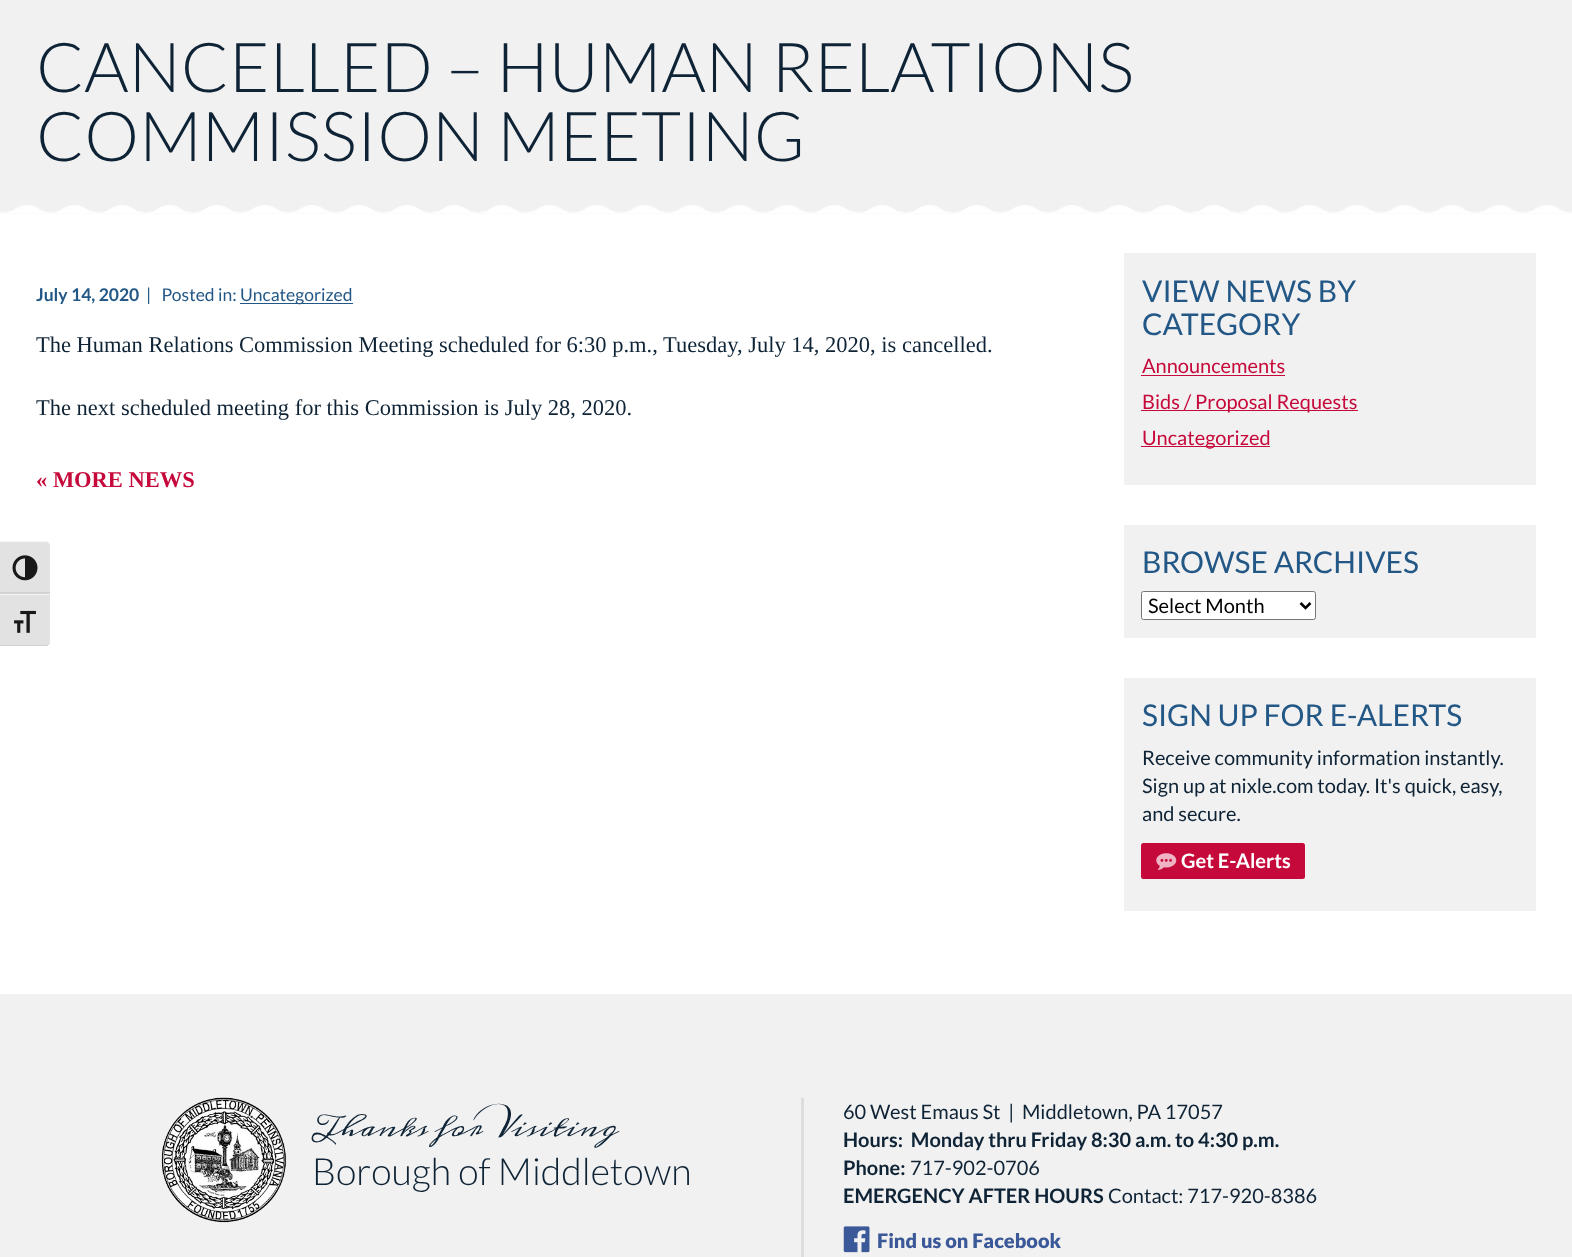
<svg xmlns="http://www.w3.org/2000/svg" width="1572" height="1257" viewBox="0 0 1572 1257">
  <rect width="100%" height="100%" fill="rgb(242,241,241)"/>
  <rect x="0" y="214" width="1572" height="780" fill="rgb(255,255,255)"/>
  <path d="M0 541H45C48 541 50 543 50 546V594H0Z" fill="rgb(226,226,226)"/>
  <path d="M0 542H45C48 542 50 544 50 546C50 544 49 542 47 541H0Z" fill="rgb(245,245,245)"/>
  <rect x="0" y="592" width="50" height="2" fill="rgb(210,210,210)"/>
  <image x="12" y="555" width="26" height="26" href="pic1.png"/>
  <path d="M0 594H50V641C50 644 48 646 45 646H0Z" fill="rgb(226,226,226)"/>
  <rect x="0" y="594" width="50" height="1" fill="rgb(245,245,245)"/>
  <path d="M0 645V646H45C48 646 50 644 50 641C50 643 48 645 45 645Z" fill="rgb(210,210,210)"/>
  <image x="14" y="610" width="22" height="23" href="pic2.png"/>
  <g font-family="Lato" font-size="68.75" font-weight="300" fill="rgb(14,35,53)">
    <text>
      <tspan x="36" y="92">CANCELLED – HUMAN RELATIONS</tspan>
      <tspan x="36" y="161">COMMISSION MEETING</tspan>
    </text>
  </g>
  <image x="0" y="205" width="1572" height="9" href="pic3.png"/>
  <text x="36" y="301" font-family="Lato" font-size="17.5" font-weight="bold" fill="rgb(35,88,134)">July 14, 2020</text>
  <text x="146" y="301" font-family="Lato" font-size="17.5" fill="rgb(35,88,134)" xml:space="preserve">|   Posted in:</text>
  <rect x="240" y="303" width="113" height="1" fill="rgb(35,88,134)"/>
  <text x="240" y="301" font-family="Lato" font-size="17.5" fill="rgb(35,88,134)">Uncategorized</text>
  <g font-family="Liberation Serif" font-size="22.5" fill="rgb(14,35,53)">
    <text x="36" y="352">The Human Relations Commission Meeting scheduled for 6:30 p.m., Tuesday, July 14, 2020, is cancelled.</text>
    <text x="36" y="415">The next scheduled meeting for this Commission is July 28, 2020.</text>
  </g>
  <text x="36" y="487" font-family="Liberation Serif" font-size="22.5" font-weight="bold" fill="rgb(198,9,59)">« MORE NEWS</text>
  <rect x="1124" y="253" width="412" height="232" fill="rgb(242,241,241)"/>
  <g font-family="Lato" font-size="30" fill="rgb(35,88,134)">
    <text>
      <tspan x="1142" y="302">VIEW NEWS BY</tspan>
      <tspan x="1142" y="335">CATEGORY</tspan>
    </text>
  </g>
  <text x="1142" y="373" font-family="Lato" font-size="20" fill="rgb(198,9,59)">Announcements</text>
  <rect x="1141" y="375" width="144" height="1" fill="rgb(198,9,59)"/>
  <rect x="1141" y="410" width="217" height="1" fill="rgb(198,9,59)"/>
  <text x="1142" y="409" font-family="Lato" font-size="20" fill="rgb(198,9,59)">Bids / Proposal Requests</text>
  <rect x="1141" y="446" width="129" height="1" fill="rgb(198,9,59)"/>
  <text x="1142" y="445" font-family="Lato" font-size="20" fill="rgb(198,9,59)">Uncategorized</text>
  <rect x="1124" y="525" width="412" height="113" fill="rgb(242,241,241)"/>
  <text x="1142" y="573" font-family="Lato" font-size="30" fill="rgb(35,88,134)">BROWSE ARCHIVES</text>
  <rect x="1141.5" y="591.5" width="174" height="28" rx="2" fill="rgb(255,255,255)" stroke="rgb(118,118,118)"/>
  <path d="M1300.5 603L1305.5 608L1310.5 603" fill="none" stroke="rgb(0,0,0)" stroke-width="2.5"/>
  <text x="1148" y="613" font-family="Lato" font-size="20" fill="rgb(0,0,0)">Select Month</text>
  <rect x="1124" y="678" width="412" height="233" fill="rgb(242,241,241)"/>
  <text x="1142" y="726" font-family="Lato" font-size="30" fill="rgb(35,88,134)">SIGN UP FOR E-ALERTS</text>
  <g font-family="Lato" font-size="20" fill="rgb(14,35,53)">
    <text>
      <tspan x="1142" y="765">Receive community information instantly.</tspan>
      <tspan x="1142" y="793">Sign up at nixle.com today. It's quick, easy,</tspan>
      <tspan x="1142" y="821">and secure.</tspan>
    </text>
  </g>
  <rect x="1141" y="843" width="164" height="36" rx="2.5" fill="rgb(198,9,59)"/>
  <image x="1156" y="853" width="21" height="17" href="pic4.png"/>
  <text x="1181" y="868" font-family="Lato" font-size="20" font-weight="bold" fill="rgb(255,255,255)">Get E-Alerts</text>
  <image x="161" y="1097" width="126" height="126" href="pic5.png"/>
  <text x="312" y="1136" font-family="Meddon" font-size="25" font-style="italic" fill="rgb(14,35,53)">Thanks for Visiting</text>
  <text x="312" y="1185" font-family="Lato" font-size="37.5" font-weight="300" fill="rgb(14,35,53)">Borough of Middletown</text>
  <rect x="801" y="1098" width="3" height="159" fill="rgb(219,221,223)"/>
  <text x="843" y="1119" font-family="Lato" font-size="20" fill="rgb(14,35,53)" xml:space="preserve">60 West Emaus St  |  Middletown, PA 17057</text>
  <g font-family="Lato" font-size="20" font-weight="bold" fill="rgb(14,35,53)">
    <text xml:space="preserve"><tspan x="843" y="1147">Hours:  Monday thru Friday 8:30 a.m. to 4:30 p.m.</tspan><tspan x="843" y="1175">Phone:</tspan></text>
  </g>
  <text x="910" y="1175" font-family="Lato" font-size="20" fill="rgb(14,35,53)">717-902-0706</text>
  <text x="843" y="1203" font-family="Lato" font-size="20" font-weight="bold" fill="rgb(14,35,53)">EMERGENCY AFTER HOURS</text>
  <text x="1108" y="1203" font-family="Lato" font-size="20" fill="rgb(14,35,53)">Contact: 717-920-8386</text>
  <image x="843" y="1226" width="27" height="27" href="pic6.png"/>
  <text x="877" y="1248" font-family="Lato" font-size="20" font-weight="900" fill="rgb(59,89,152)">Find us on Facebook</text>
</svg>
